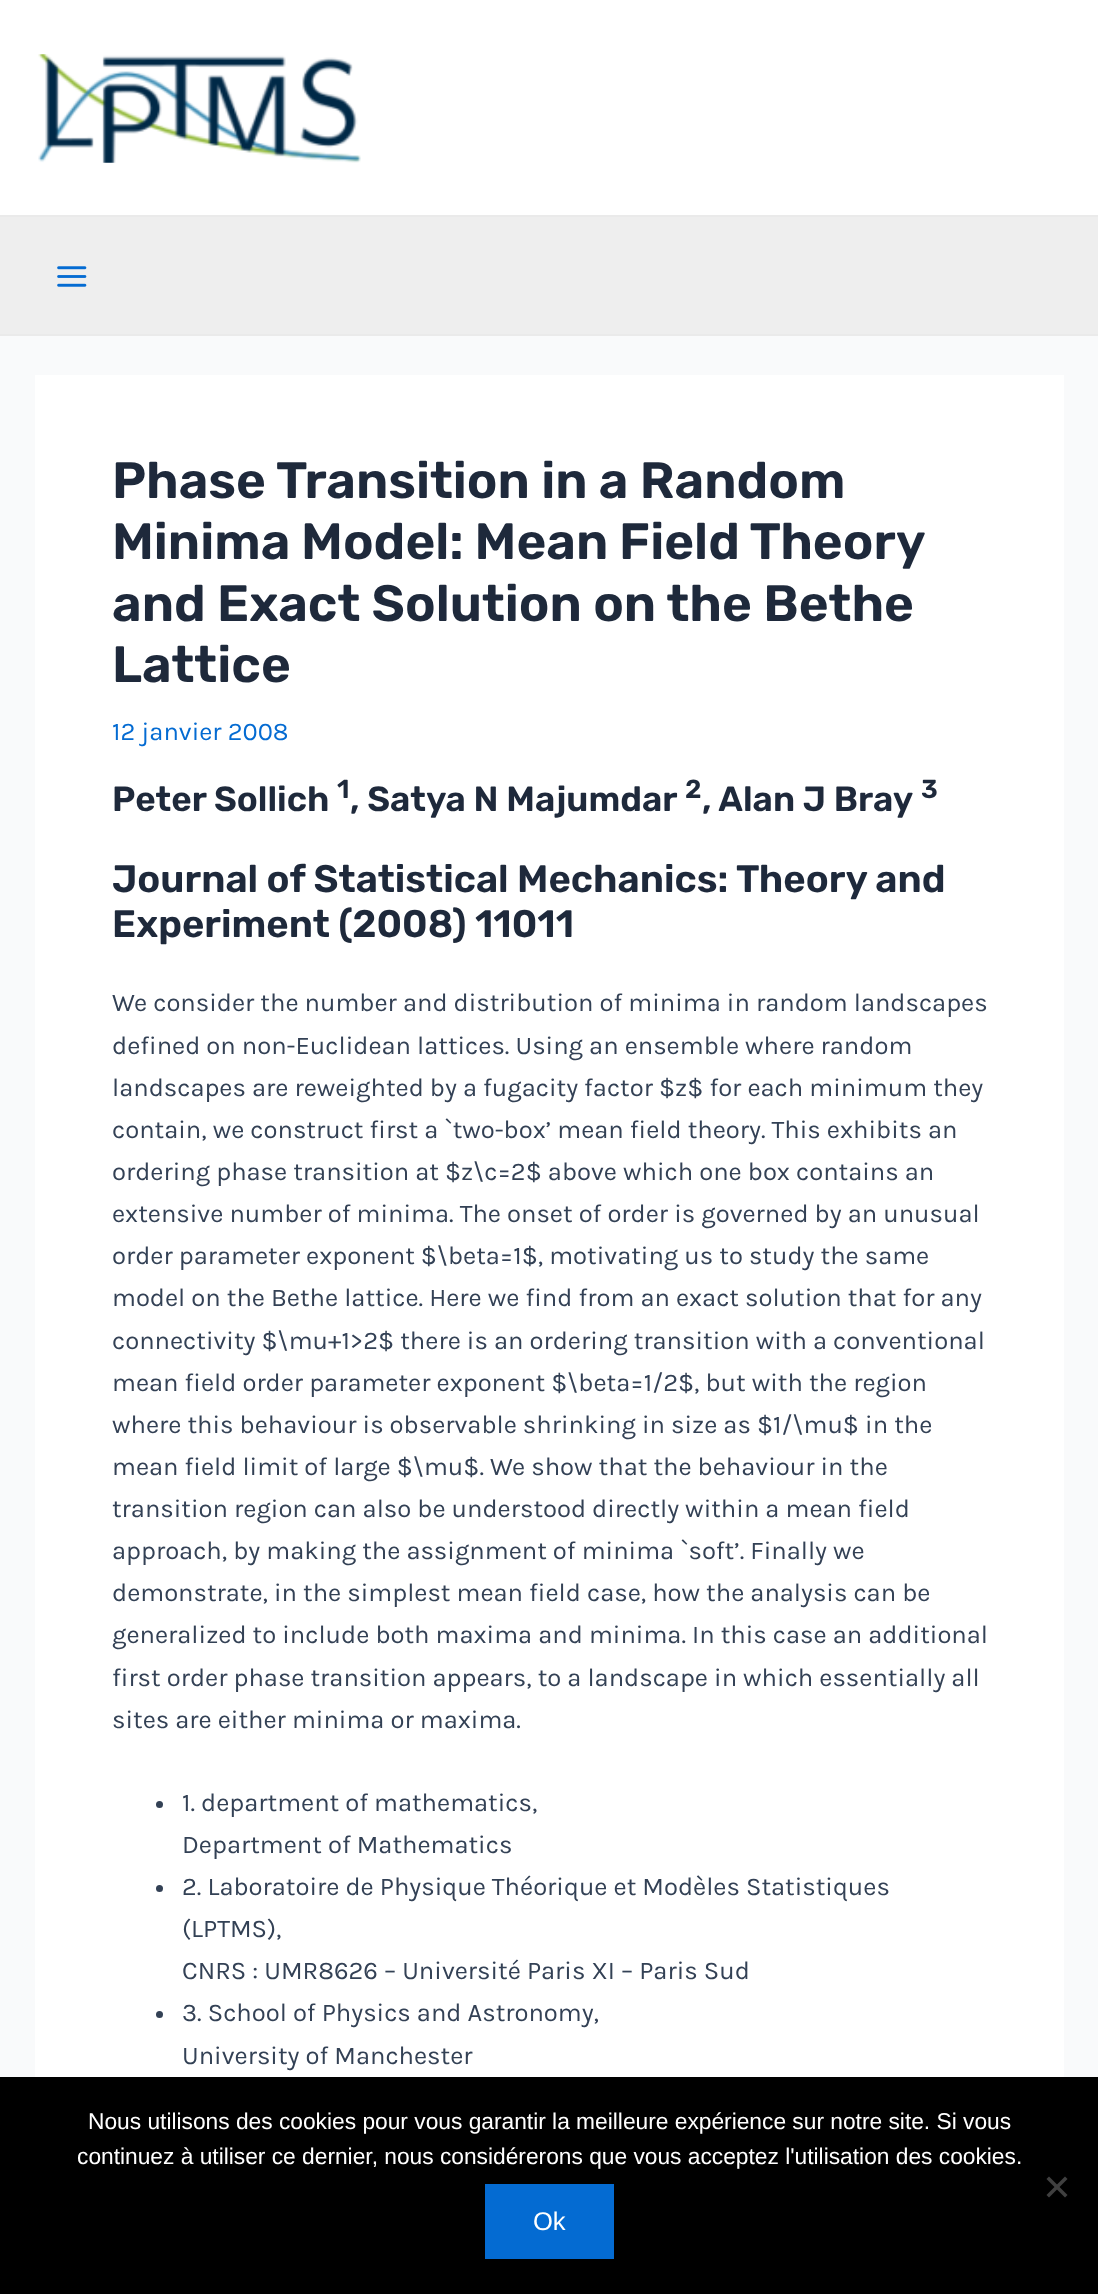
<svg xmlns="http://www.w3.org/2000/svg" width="1098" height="2294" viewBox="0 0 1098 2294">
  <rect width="100%" height="100%" fill="rgb(249,250,251)"/>
  <rect x="0" y="0" width="1098" height="215" fill="rgb(255,255,255)"/>
  <rect x="0" y="215" width="1098" height="2" fill="rgb(234,234,234)"/>
  <image x="38" y="54" width="323" height="109" href="pic1.png"/>
  <rect x="0" y="217" width="1098" height="117" fill="rgb(238,238,238)"/>
  <rect x="0" y="334" width="1098" height="2" fill="rgb(234,234,234)"/>
  <image x="57" y="266" width="30" height="21" href="pic2.png"/>
  <rect x="35" y="375" width="1029" height="1702" fill="rgb(255,255,255)"/>
  <g font-family="Rubik" font-size="51.1" font-weight="600" fill="rgb(30,41,59)">
    <text>
      <tspan x="112" y="498">Phase Transition in a Random</tspan>
      <tspan x="112" y="559" word-spacing="-0.5">Minima Model: Mean Field Theory</tspan>
      <tspan x="112" y="621">and Exact Solution on the Bethe</tspan>
      <tspan x="112" y="682">Lattice</tspan>
    </text>
  </g>
  <text x="112" y="740" font-family="Karla" font-size="25.55" fill="rgb(4,107,210)">12 janvier 2008</text>
  <text x="112" y="811" font-family="Rubik" font-size="35" font-weight="600" fill="rgb(30,41,59)">Peter Sollich</text>
  <text x="337" y="798" font-family="Rubik" font-size="26" font-weight="600" fill="rgb(30,41,59)">1</text>
  <text x="350" y="811" font-family="Rubik" font-size="35" font-weight="600" fill="rgb(30,41,59)">, Satya N Majumdar</text>
  <text x="685" y="798" font-family="Rubik" font-size="26" font-weight="600" fill="rgb(30,41,59)">2</text>
  <text x="702" y="811" font-family="Rubik" font-size="35" font-weight="600" fill="rgb(30,41,59)">, Alan J Bray</text>
  <text x="921" y="798" font-family="Rubik" font-size="26" font-weight="600" fill="rgb(30,41,59)">3</text>
  <g font-family="Rubik" font-size="38.3" font-weight="600" fill="rgb(30,41,59)">
    <text>
      <tspan x="112" y="892">Journal of Statistical Mechanics: Theory and</tspan>
      <tspan x="112" y="937">Experiment (2008) 11011</tspan>
    </text>
  </g>
  <g font-family="Karla" font-size="25.55" fill="rgb(51,65,85)">
    <text>
      <tspan x="112" y="1011">We consider the number and distribution of minima in random landscapes</tspan>
      <tspan x="112" y="1054">defined on non-Euclidean lattices. Using an ensemble where random</tspan>
      <tspan x="112" y="1096">landscapes are reweighted by a fugacity factor $z$ for each minimum they</tspan>
      <tspan x="112" y="1138">contain, we construct first a `two-box’ mean field theory. This exhibits an</tspan>
      <tspan x="112" y="1180">ordering phase transition at $z\c=2$ above which one box contains an</tspan>
      <tspan x="112" y="1222">extensive number of minima. The onset of order is governed by an unusual</tspan>
      <tspan x="112" y="1264">order parameter exponent $\beta=1$, motivating us to study the same</tspan>
      <tspan x="112" y="1306">model on the Bethe lattice. Here we find from an exact solution that for any</tspan>
      <tspan x="112" y="1349">connectivity $\mu+1&gt;2$ there is an ordering transition with a conventional</tspan>
      <tspan x="112" y="1391">mean field order parameter exponent $\beta=1/2$, but with the region</tspan>
      <tspan x="112" y="1433">where this behaviour is observable shrinking in size as $1/\mu$ in the</tspan>
      <tspan x="112" y="1475">mean field limit of large $\mu$. We show that the behaviour in the</tspan>
      <tspan x="112" y="1517">transition region can also be understood directly within a mean field</tspan>
      <tspan x="112" y="1559">approach, by making the assignment of minima `soft’. Finally we</tspan>
      <tspan x="112" y="1601">demonstrate, in the simplest mean field case, how the analysis can be</tspan>
      <tspan x="112" y="1643">generalized to include both maxima and minima. In this case an additional</tspan>
      <tspan x="112" y="1686">first order phase transition appears, to a landscape in which essentially all</tspan>
      <tspan x="112" y="1728">sites are either minima or maxima.</tspan>
    </text>
  </g>
  <circle cx="159.5" cy="1804.5" r="3.5" fill="rgb(51,65,85)"/>
  <g font-family="Karla" font-size="25.55" fill="rgb(51,65,85)">
    <text>
      <tspan x="182" y="1811">1. department of mathematics,</tspan>
      <tspan x="182" y="1853">Department of Mathematics</tspan>
    </text>
  </g>
  <circle cx="159.5" cy="1888.5" r="3.5" fill="rgb(51,65,85)"/>
  <g font-family="Karla" font-size="25.55" fill="rgb(51,65,85)">
    <text>
      <tspan x="182" y="1895">2. Laboratoire de Physique Théorique et Modèles Statistiques</tspan>
      <tspan x="182" y="1937">(LPTMS),</tspan>
      <tspan x="182" y="1979">CNRS : UMR8626 – Université Paris XI – Paris Sud</tspan>
    </text>
  </g>
  <circle cx="159.5" cy="2014.5" r="3.5" fill="rgb(51,65,85)"/>
  <g font-family="Karla" font-size="25.55" fill="rgb(51,65,85)">
    <text>
      <tspan x="182" y="2021">3. School of Physics and Astronomy,</tspan>
      <tspan x="182" y="2064">University of Manchester</tspan>
    </text>
  </g>
  <rect x="0" y="2077" width="1098" height="217" fill="rgb(0,0,0)"/>
  <g font-family="Liberation Sans" font-size="22.75" fill="rgb(255,255,255)">
    <text x="88" y="2129">Nous utilisons des cookies pour vous garantir la meilleure expérience sur notre site. Si vous</text>
    <text x="77" y="2164">continuez à utiliser ce dernier, nous considérerons que vous acceptez l'utilisation des cookies.</text>
  </g>
  <path d="M1065 2176.5L1067.5 2179L1049 2197.5L1046.5 2195Z" fill="rgb(64,64,64)"/>
  <path d="M1046.5 2179L1049 2176.5L1067.5 2195L1065 2197.5Z" fill="rgb(64,64,64)"/>
  <rect x="485" y="2184" width="129" height="75" fill="rgb(4,107,210)"/>
  <text x="533" y="2230" font-family="Liberation Sans" font-size="25.55" fill="rgb(255,255,255)">Ok</text>
</svg>
